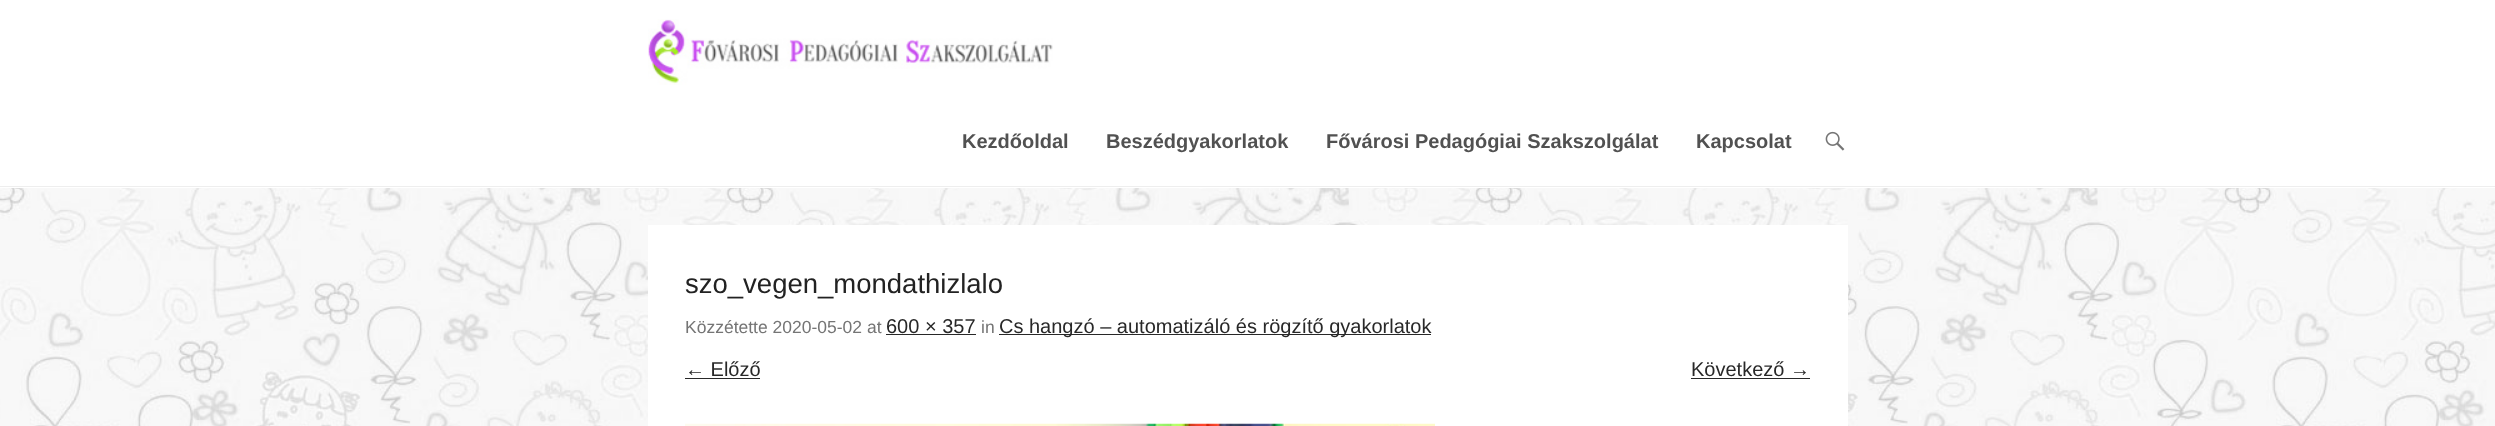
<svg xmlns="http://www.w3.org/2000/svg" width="2495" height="426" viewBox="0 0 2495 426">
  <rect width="100%" height="100%" fill="rgb(255,255,255)"/>
  <image x="0" y="188" width="2495" height="238" href="pic1.png"/>
  <rect x="0" y="186" width="2495" height="1" fill="rgb(238,238,238)"/>
  <image x="648" y="19" width="405" height="66" href="pic2.png"/>
  <g font-family="Liberation Sans" font-size="20" font-weight="bold" fill="rgb(81,81,81)">
    <text x="962" y="148">Kezdőoldal</text>
    <text x="1106" y="148">Beszédgyakorlatok</text>
    <text x="1326" y="148">Fővárosi Pedagógiai Szakszolgálat</text>
    <text x="1696" y="148">Kapcsolat</text>
  </g>
  <image x="1825" y="131" width="20" height="20" href="pic3.png"/>
  <rect x="648" y="225" width="1200" height="201" fill="rgb(255,255,255)"/>
  <text x="685" y="293" font-family="Liberation Sans" font-size="27.5" fill="rgb(34,34,34)">szo_vegen_mondathizlalo</text>
  <text x="685" y="333" font-family="Liberation Sans" font-size="17.5" fill="rgb(117,117,117)">Közzétette 2020-05-02 at</text>
  <text x="886" y="333" font-family="Liberation Sans" font-size="20" fill="rgb(40,40,40)">600 × 357</text>
  <rect x="886" y="334" width="90" height="1" fill="rgb(40,40,40)"/>
  <text x="981" y="333" font-family="Liberation Sans" font-size="17.5" fill="rgb(117,117,117)">in</text>
  <rect x="999" y="334" width="432" height="1" fill="rgb(40,40,40)"/>
  <g font-family="Liberation Sans" font-size="20" fill="rgb(40,40,40)">
    <text x="999" y="333">Cs hangzó – automatizáló és rögzítő gyakorlatok</text>
    <text x="685" y="376">← Előző</text>
  </g>
  <rect x="685" y="378" width="75" height="1" fill="rgb(40,40,40)"/>
  <text x="1691" y="376" font-family="Liberation Sans" font-size="20" fill="rgb(40,40,40)">Következő →</text>
  <rect x="1691" y="378" width="119" height="1" fill="rgb(40,40,40)"/>
  <image x="685" y="423" width="750" height="3" href="pic4.png"/>
</svg>
